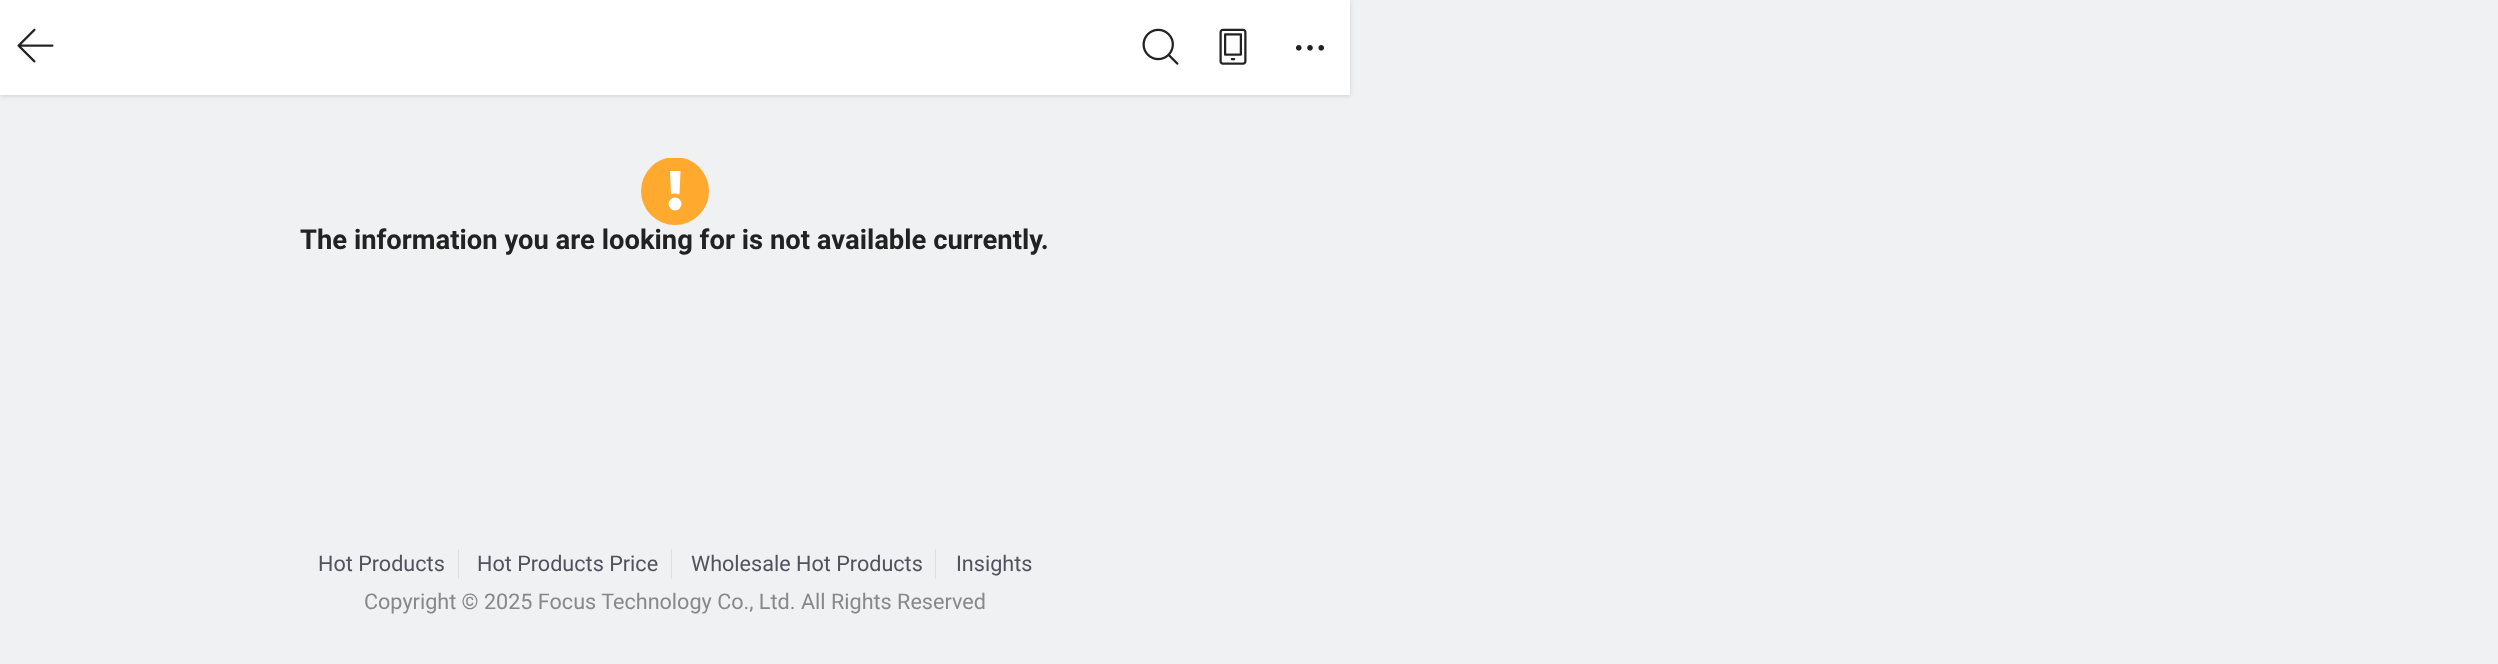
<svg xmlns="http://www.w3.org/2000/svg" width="2498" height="664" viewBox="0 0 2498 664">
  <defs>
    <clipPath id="clip1"><path d="M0 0H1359V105H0ZM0 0H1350V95H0Z" clip-rule="evenodd"/></clipPath>
    <clipPath id="clip2"><rect x="641" y="158" width="68" height="67"/></clipPath>
  </defs>
  <rect width="100%" height="100%" fill="rgb(240,241,242)"/>
  <rect x="0" y="0" width="1350" height="95" fill="rgb(255,255,255)"/>
  <g clip-path="url(#clip1)">
    <rect x="0" y="1" width="1350" height="95" fill="rgb(206,211,217)" filter="blur(2.5px)"/>
  </g>
  <image x="17" y="28" width="37" height="35" href="pic1.png"/>
  <image x="1142" y="28" width="37" height="37" href="pic2.png"/>
  <image x="1219" y="28" width="28" height="37" href="pic3.png"/>
  <image x="1296" y="45" width="28" height="6" href="pic4.png"/>
  <g clip-path="url(#clip2)">
    <circle cx="675" cy="191" r="34" fill="rgb(255,169,47)"/>
  </g>
  <circle cx="675" cy="204" r="6.5" fill="rgb(255,255,255)"/>
  <path d="M675 193.5C673.5 193.5 672 193.5 671 194.5L670 171H680.5L679.5 194.5C678 193.5 676.5 193.5 675 193.5Z" fill="rgb(255,255,255)"/>
  <text x="300" y="249" font-family="Roboto" font-size="27.4" font-weight="bold" fill="rgb(34,34,34)">The information you are looking for is not available currently.</text>
  <rect x="458" y="549" width="1" height="30" fill="rgb(218,224,229)"/>
  <text x="318" y="571" font-family="Roboto" font-size="21.6" fill="rgb(81,82,95)">Hot Products</text>
  <rect x="671" y="549" width="1" height="30" fill="rgb(218,224,229)"/>
  <text x="477" y="571" font-family="Roboto" font-size="21.6" fill="rgb(81,82,95)">Hot Products Price</text>
  <rect x="935" y="549" width="1" height="30" fill="rgb(218,224,229)"/>
  <g font-family="Roboto" font-size="21.6" fill="rgb(81,82,95)">
    <text x="691" y="571">Wholesale Hot Products</text>
    <text x="956" y="571">Insights</text>
  </g>
  <g font-family="Roboto" font-size="21.6" fill="rgb(136,136,136)">
    <text x="364" y="609">Copyright © 2025 Focus Technology Co., Ltd.</text>
    <text x="801" y="609">All Rights Reserved</text>
  </g>
</svg>
